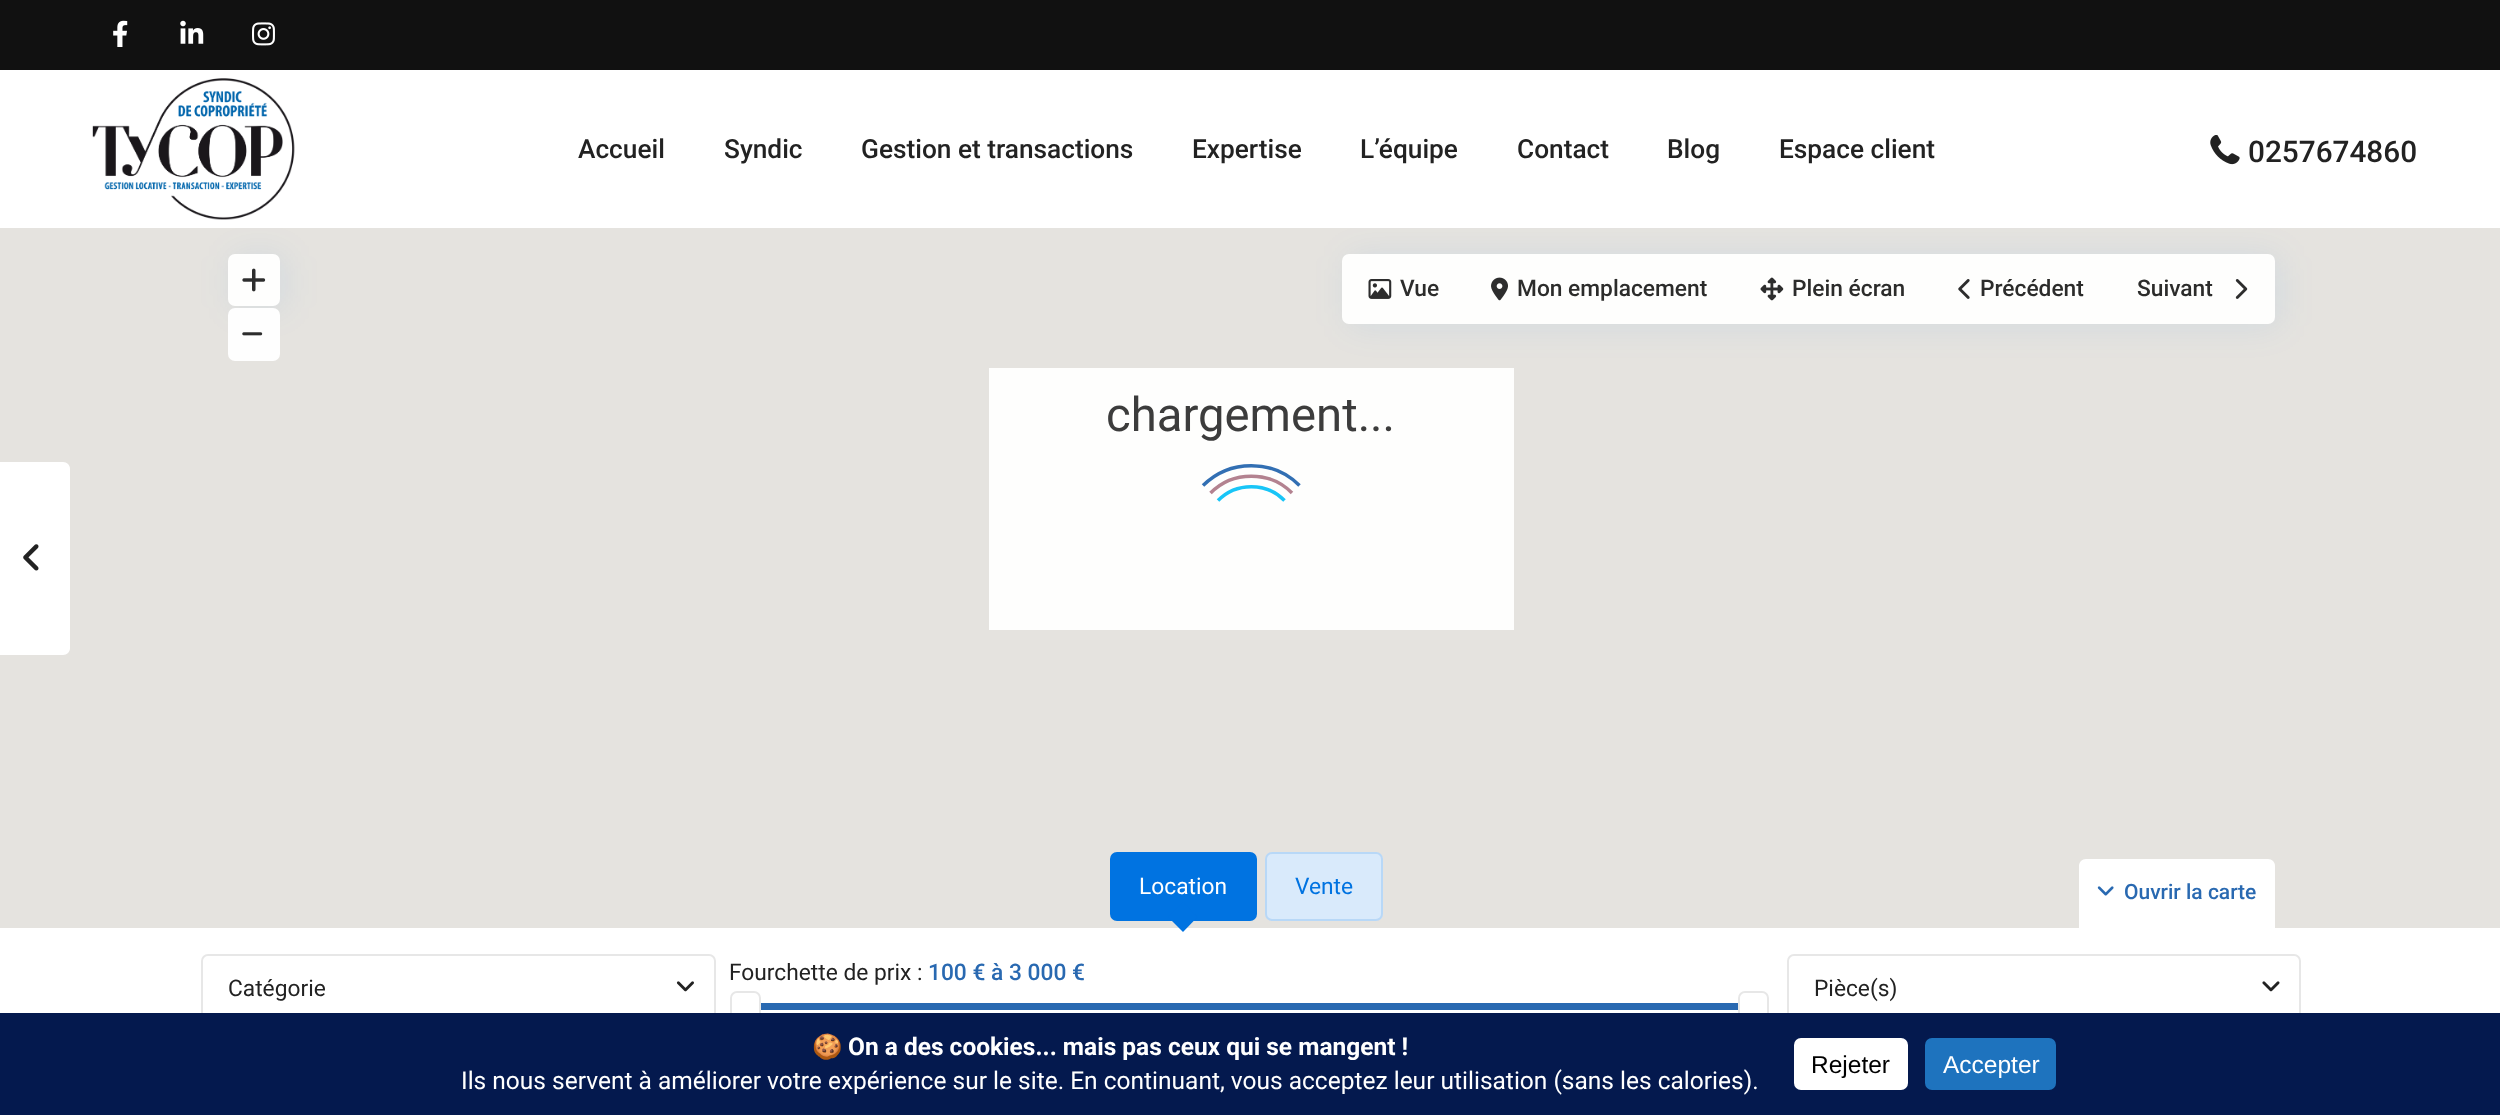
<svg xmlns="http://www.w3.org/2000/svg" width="2500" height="1115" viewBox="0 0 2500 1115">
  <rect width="100%" height="100%" fill="rgb(229,227,223)"/>
  <path d="M-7 462H63C67 462 70 465 70 469V648C70 652 67 655 63 655H-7Z" fill="rgb(255,255,255)"/>
  <image x="23" y="544" width="16" height="27" href="pic1.png"/>
  <rect x="0" y="0" width="2500" height="70" fill="rgb(17,17,17)"/>
  <image x="113" y="20" width="15" height="27" href="pic2.png"/>
  <image x="180" y="20" width="24" height="24" href="pic3.png"/>
  <image x="252" y="22" width="23" height="24" href="pic4.png"/>
  <rect x="233" y="256" width="52" height="52" rx="7" fill="rgba(0,110,225,0.08)" filter="blur(17.5px)"/>
  <rect x="989" y="368" width="525" height="262" fill="rgb(254,254,253)"/>
  <rect x="1348" y="256" width="932" height="70" rx="7" fill="rgba(0,110,225,0.08)" filter="blur(17.5px)"/>
  <rect x="0" y="70" width="2500" height="158" fill="rgb(255,255,255)"/>
  <image x="92" y="78" width="203" height="142" href="pic5.png"/>
  <g font-family="Roboto" font-size="26.25" font-weight="500" fill="rgb(34,34,34)">
    <text x="578" y="158">Accueil</text>
    <text x="724" y="158">Syndic</text>
    <text x="861" y="158">Gestion et transactions</text>
    <text x="1192" y="158">Expertise</text>
    <text x="1360" y="158">L’équipe</text>
    <text x="1517" y="158">Contact</text>
    <text x="1667" y="158">Blog</text>
    <text x="1779" y="158">Espace client</text>
  </g>
  <image x="2210" y="135" width="30" height="30" href="pic6.png"/>
  <text x="2248" y="162" font-family="Roboto" font-size="29.75" font-weight="500" fill="rgb(34,34,34)">0257674860</text>
  <text x="1106" y="431" font-family="Roboto" font-size="47.25" fill="rgb(60,60,60)">chargement...</text>
  <path d="M1203 485.5C1229.5 459 1273 459 1299.5 485.5" fill="none" stroke="rgb(50,111,179)" stroke-width="3.5"/>
  <path d="M1210.5 493C1232.5 470.5 1270 470.5 1292 493" fill="none" stroke="rgb(179,130,144)" stroke-width="3.5"/>
  <path d="M1218 500.5C1236 482 1266.5 482 1284.5 500.5" fill="none" stroke="rgb(24,197,247)" stroke-width="3.5"/>
  <rect x="228" y="254" width="52" height="52" rx="7" fill="rgb(254,254,253)"/>
  <image x="242" y="268" width="24" height="24" href="pic7.png"/>
  <rect x="1342" y="254" width="933" height="70" rx="7" fill="rgb(254,254,253)"/>
  <image x="1368" y="279" width="24" height="20" href="pic8.png"/>
  <text x="1400" y="296" font-family="Roboto" font-size="22.75" font-weight="500" fill="rgb(44,44,43)">Vue</text>
  <image x="1491" y="277" width="17" height="24" href="pic9.png"/>
  <text x="1517" y="296" font-family="Roboto" font-size="22.75" font-weight="500" fill="rgb(44,44,43)">Mon emplacement</text>
  <image x="1760" y="277" width="24" height="24" href="pic10.png"/>
  <text x="1792" y="296" font-family="Roboto" font-size="22.75" font-weight="500" fill="rgb(44,44,43)">Plein écran</text>
  <image x="1958" y="279" width="12" height="20" href="pic11.png"/>
  <g font-family="Roboto" font-size="22.75" font-weight="500" fill="rgb(44,44,43)">
    <text x="1980" y="296">Précédent</text>
    <text x="2137" y="296">Suivant</text>
  </g>
  <image x="2235" y="279" width="13" height="20" href="pic12.png"/>
  <rect x="228" y="308" width="52" height="53" rx="7" fill="rgba(255,255,255,0.95)"/>
  <image x="242" y="332" width="21" height="4" href="pic13.png"/>
  <path d="M2086 859H2268C2272 859 2275 862 2275 866V928H2079V866C2079 862 2082 859 2086 859Z" fill="rgb(255,255,255)"/>
  <image x="2097" y="886" width="17" height="10" href="pic14.png"/>
  <text x="2124" y="899" font-family="Roboto" font-size="21" font-weight="500" fill="rgb(41,105,177)">Ouvrir la carte</text>
  <rect x="1111" y="853" width="145" height="67" rx="6" fill="rgb(0,115,225)" stroke="rgb(0,115,225)" stroke-width="2"/>
  <text x="1139" y="894" font-family="Roboto" font-size="22.75" fill="rgb(255,255,255)">Location</text>
  <rect x="0" y="928" width="2500" height="85" fill="rgb(255,255,255)"/>
  <path d="M1183 902L1197.5 917L1183 932L1168 917Z" fill="rgb(0,115,225)"/>
  <rect x="1265" y="852" width="118" height="69" rx="7" fill="rgb(217,234,251)"/>
  <rect x="1266" y="853" width="116" height="67" rx="6" fill="none" stroke="rgba(0,115,225,0.15)" stroke-width="2"/>
  <text x="1295" y="894" font-family="Roboto" font-size="22.75" fill="rgb(0,115,225)">Vente</text>
  <text x="729" y="980" font-family="Roboto" font-size="22.75" fill="rgb(34,34,34)">Fourchette de prix :</text>
  <text x="928" y="980" font-family="Roboto" font-size="22.75" font-weight="500" fill="rgb(41,105,177)">100 € à 3 000 €</text>
  <rect x="731" y="992" width="29" height="29" rx="6" fill="rgb(255,255,255)" stroke="rgb(231,231,231)" stroke-width="2"/>
  <rect x="761" y="1003" width="977" height="7" fill="rgb(41,105,177)"/>
  <rect x="1739" y="992" width="29" height="29" rx="6" fill="rgb(255,255,255)" stroke="rgb(231,231,231)" stroke-width="2"/>
  <rect x="202" y="955" width="513" height="68" rx="6" fill="none" stroke="rgb(231,231,231)" stroke-width="2"/>
  <text x="228" y="996" font-family="Roboto" font-size="22.75" fill="rgb(34,34,34)">Catégorie</text>
  <image x="676" y="981" width="18" height="11" href="pic15.png"/>
  <rect x="1788" y="955" width="512" height="68" rx="6" fill="none" stroke="rgb(231,231,231)" stroke-width="2"/>
  <text x="1814" y="996" font-family="Roboto" font-size="22.75" fill="rgb(34,34,34)">Pièce(s)</text>
  <image x="2262" y="981" width="18" height="11" href="pic16.png"/>
  <rect x="0" y="1013" width="2500" height="102" fill="rgb(4,25,78)"/>
  <text x="812" y="1055" font-family="Noto Color Emoji" font-size="24.5" fill="rgb(255,255,255)">🍪</text>
  <text x="848" y="1055" font-family="Roboto" font-size="24.5" font-weight="bold" fill="rgb(255,255,255)">On a des cookies... mais pas ceux qui se mangent !</text>
  <text x="461" y="1089" font-family="Roboto" font-size="24.5" fill="rgb(255,255,255)">Ils nous servent à améliorer votre expérience sur le site. En continuant, vous acceptez leur utilisation (sans les calories).</text>
  <rect x="1794" y="1038" width="114" height="52" rx="7" fill="rgb(255,255,255)"/>
  <text x="1811" y="1073" font-family="Liberation Sans" font-size="24.5" fill="rgb(0,0,0)">Rejeter</text>
  <rect x="1925" y="1038" width="131" height="52" rx="7" fill="rgb(30,115,190)"/>
  <text x="1943" y="1073" font-family="Liberation Sans" font-size="24.5" fill="rgb(255,255,255)">Accepter</text>
</svg>
